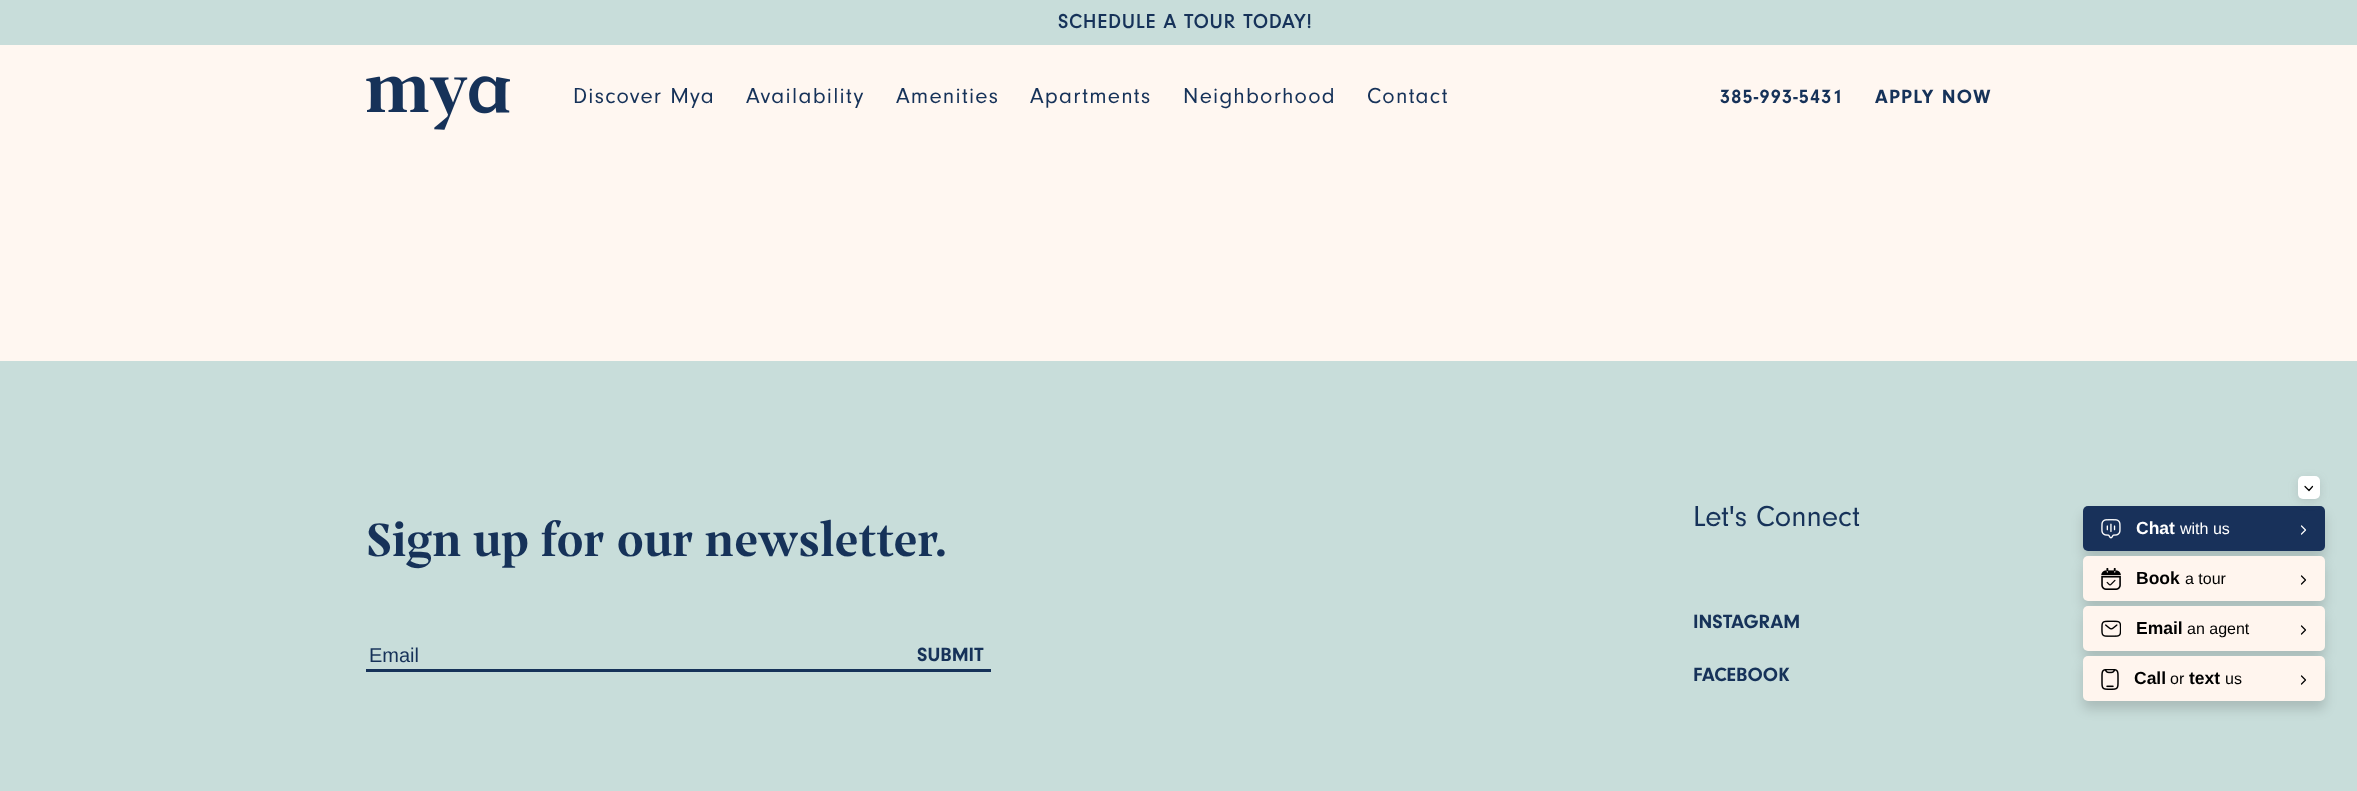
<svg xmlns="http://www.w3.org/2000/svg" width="2357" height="791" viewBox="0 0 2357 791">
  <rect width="100%" height="100%" fill="rgb(255,247,241)"/>
  <rect x="0" y="0" width="2357" height="45" fill="rgb(200,221,218)"/>
  <text x="1058" y="28" font-family="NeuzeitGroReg" font-size="20" font-weight="bold" letter-spacing="1.25" fill="rgb(22,50,89)">SCHEDULE A TOUR TODAY!</text>
  <image x="366" y="76" width="144" height="54" href="pic1.png"/>
  <g font-family="NeuzeitGroReg" font-size="22.5" letter-spacing="1.25" fill="rgb(22,50,89)">
    <text x="573" y="103">Discover Mya</text>
    <text x="746" y="103">Availability</text>
    <text x="896" y="103">Amenities</text>
    <text x="1030" y="103">Apartments</text>
    <text x="1183" y="103">Neighborhood</text>
    <text x="1367" y="103">Contact</text>
  </g>
  <g font-family="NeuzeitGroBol" font-size="20" letter-spacing="1.25" fill="rgb(22,50,89)">
    <text x="1720" y="103">385-993-5431</text>
    <text x="1875" y="103">APPLY NOW</text>
  </g>
  <rect x="0" y="361" width="2357" height="430" fill="rgb(200,221,218)"/>
  <text x="366" y="556" font-family="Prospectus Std" font-size="50" font-weight="bold" fill="rgb(22,50,89)">Sign up for our newsletter.</text>
  <rect x="366" y="669" width="625" height="3" fill="rgb(22,50,89)"/>
  <text x="369" y="662" font-family="Liberation Sans" font-size="20" fill="rgb(22,50,89)">Email</text>
  <text x="917" y="661" font-family="NeuzeitGroBol" font-size="20" fill="rgb(22,50,89)">SUBMIT</text>
  <text x="1693" y="526" font-family="NeuzeitGroReg" font-size="30" fill="rgb(22,50,89)">Let's Connect</text>
  <g font-family="NeuzeitGroBol" font-size="20" fill="rgb(22,50,89)">
    <text x="1693" y="628">INSTAGRAM</text>
    <text x="1693" y="681">FACEBOOK</text>
  </g>
  <rect x="2083" y="514" width="242" height="45" rx="5" fill="rgba(0,0,0,0.15)" filter="blur(6px)"/>
  <rect x="2083" y="506" width="242" height="45" rx="5" fill="rgb(24,49,90)"/>
  <rect x="2298" y="479" width="22" height="22" rx="5" fill="rgba(99,99,99,0.2)" filter="blur(5px)"/>
  <rect x="2298" y="476" width="22" height="23" rx="5" fill="rgb(255,255,255)"/>
  <path d="M2305 486.5L2309 490.5L2312.5 486.5" fill="none" stroke="rgb(0,0,0)" stroke-width="1.2" stroke-linecap="round" stroke-linejoin="round"/>
  <image x="2101" y="519" width="20" height="20" href="pic2.png"/>
  <text x="2136" y="534" font-family="Liberation Sans" font-size="17.5" font-weight="bold" fill="rgb(255,255,255)">Chat</text>
  <text x="2180" y="534" font-family="Liberation Sans" font-size="16" fill="rgb(255,255,255)">with us</text>
  <path d="M2301.5 534L2305.5 530L2301.5 526" fill="none" stroke="rgb(255,255,255)" stroke-width="1.2" stroke-linecap="round" stroke-linejoin="round"/>
  <rect x="2083" y="564" width="242" height="45" rx="5" fill="rgba(0,0,0,0.15)" filter="blur(6px)"/>
  <rect x="2083" y="556" width="242" height="45" rx="5" fill="rgb(255,245,238)"/>
  <image x="2101" y="568" width="20" height="22" href="pic3.png"/>
  <text x="2136" y="584" font-family="Liberation Sans" font-size="17.5" font-weight="bold" fill="rgb(0,0,0)">Book</text>
  <text x="2185" y="584" font-family="Liberation Sans" font-size="16" fill="rgb(0,0,0)">a tour</text>
  <path d="M2301.5 584L2305.5 580L2301.5 576" fill="none" stroke="rgb(0,0,0)" stroke-width="1.2" stroke-linecap="round" stroke-linejoin="round"/>
  <rect x="2083" y="614" width="242" height="45" rx="5" fill="rgba(0,0,0,0.15)" filter="blur(6px)"/>
  <rect x="2083" y="606" width="242" height="45" rx="5" fill="rgb(255,245,238)"/>
  <image x="2101" y="620" width="20" height="17" href="pic4.png"/>
  <text x="2136" y="634" font-family="Liberation Sans" font-size="17.5" font-weight="bold" fill="rgb(0,0,0)">Email</text>
  <text x="2187" y="634" font-family="Liberation Sans" font-size="16" fill="rgb(0,0,0)">an agent</text>
  <path d="M2301.5 634L2305.5 630L2301.5 626" fill="none" stroke="rgb(0,0,0)" stroke-width="1.2" stroke-linecap="round" stroke-linejoin="round"/>
  <rect x="2083" y="664" width="242" height="45" rx="5" fill="rgba(0,0,0,0.15)" filter="blur(6px)"/>
  <rect x="2083" y="656" width="242" height="45" rx="5" fill="rgb(255,245,238)"/>
  <image x="2101" y="669" width="18" height="21" href="pic5.png"/>
  <text x="2134" y="684" font-family="Liberation Sans" font-size="17.5" font-weight="bold" fill="rgb(0,0,0)">Call</text>
  <text x="2170" y="684" font-family="Liberation Sans" font-size="16" fill="rgb(0,0,0)">or</text>
  <text x="2189" y="684" font-family="Liberation Sans" font-size="17.5" font-weight="bold" fill="rgb(0,0,0)">text</text>
  <text x="2225" y="684" font-family="Liberation Sans" font-size="16" fill="rgb(0,0,0)">us</text>
  <path d="M2301.5 684L2305.5 680L2301.5 676" fill="none" stroke="rgb(0,0,0)" stroke-width="1.2" stroke-linecap="round" stroke-linejoin="round"/>
</svg>
